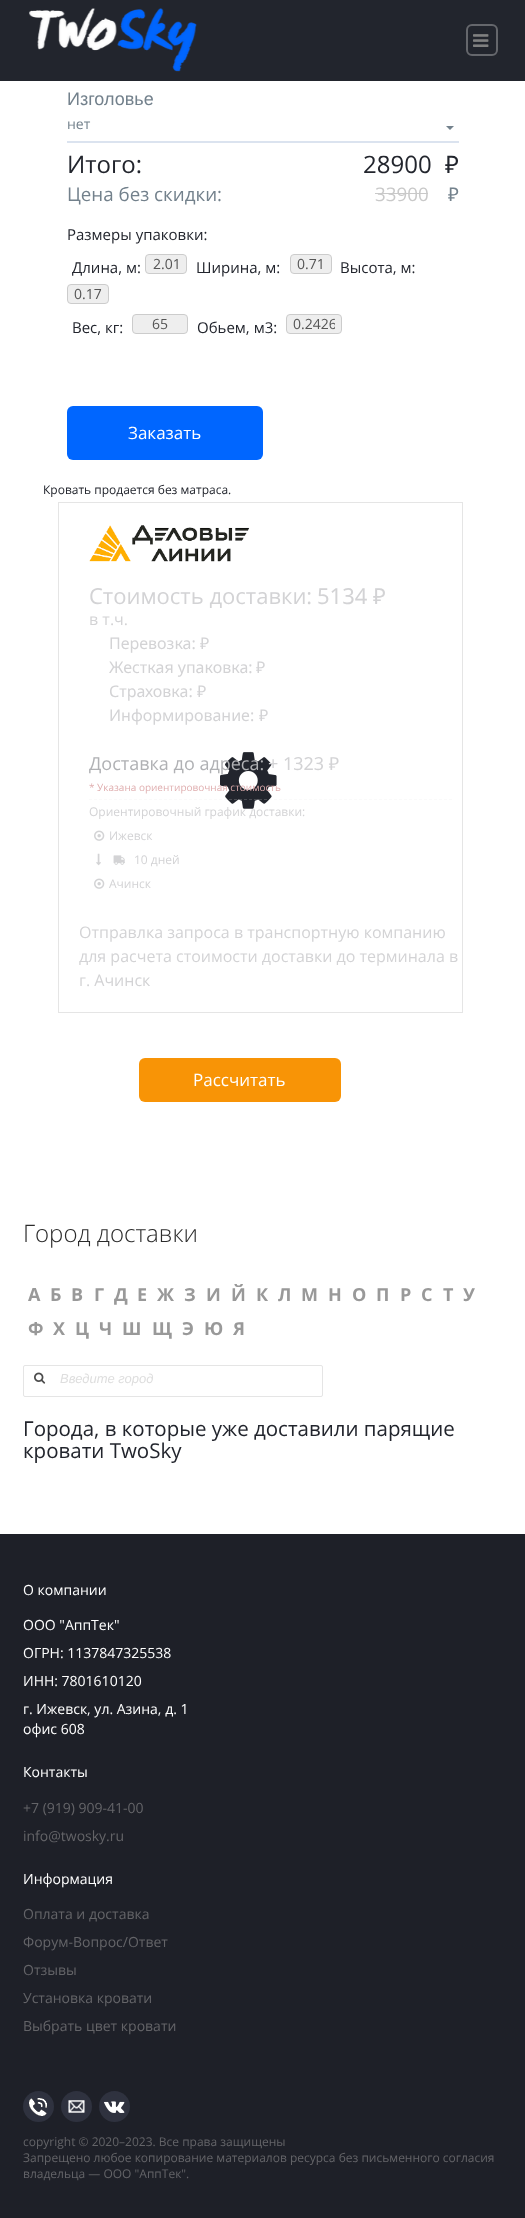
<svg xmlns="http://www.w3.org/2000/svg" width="525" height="2218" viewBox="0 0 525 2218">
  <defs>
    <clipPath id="clip1"><rect x="293" y="314" width="42" height="20"/></clipPath>
  </defs>
  <rect width="100%" height="100%" fill="rgb(255,255,255)"/>
  <rect x="0" y="0" width="525" height="81" fill="rgb(34,37,45)"/>
  <image x="29" y="8" width="168" height="64" href="pic1.png"/>
  <rect x="467" y="25" width="30" height="30" rx="5" fill="none" stroke="rgb(101,103,108)" stroke-width="2"/>
  <image x="473" y="34" width="16" height="13" href="pic2.png"/>
  <text x="67" y="105" font-family="Liberation Sans" font-size="18" fill="rgb(115,129,140)">Изголовье</text>
  <path d="M446 126L450 130L454 126Z" fill="rgb(115,129,140)"/>
  <rect x="67" y="141" width="392" height="2" fill="rgb(219,227,239)"/>
  <text x="67" y="129" font-family="Open Sans" font-size="14" fill="rgb(115,129,140)">нет</text>
  <g font-family="Open Sans" font-size="24" fill="rgb(34,37,45)">
    <text x="67" y="173">Итого:</text>
    <text x="363" y="173">28900</text>
  </g>
  <text x="445" y="173" font-family="Noto Sans" font-size="24" fill="rgb(34,37,45)">₽</text>
  <text x="67" y="201" font-family="Open Sans" font-size="18.75" fill="rgb(115,129,140)">Цена без скидки:</text>
  <text x="375" y="201" font-family="Open Sans" font-size="18.75" fill="rgb(201,201,201)">33900</text>
  <rect x="375" y="193" width="53" height="1" fill="rgb(201,201,201)"/>
  <text x="448" y="201" font-family="Noto Sans" font-size="18.75" fill="rgb(115,129,140)">₽</text>
  <g font-family="Open Sans" font-size="15" fill="rgb(34,37,45)">
    <text x="67" y="240">Размеры упаковки:</text>
    <text x="72" y="273">Длина, м:</text>
  </g>
  <rect x="145.5" y="254.5" width="41" height="19" rx="3.5" fill="rgb(238,238,238)" stroke="rgb(204,204,204)"/>
  <text x="153" y="269" font-family="Open Sans" font-size="14" fill="rgb(85,85,85)">2.01</text>
  <text x="196" y="273" font-family="Open Sans" font-size="15" fill="rgb(34,37,45)">Ширина, м:</text>
  <rect x="290.5" y="254.5" width="41" height="19" rx="3.5" fill="rgb(238,238,238)" stroke="rgb(204,204,204)"/>
  <text x="297" y="269" font-family="Open Sans" font-size="14" fill="rgb(85,85,85)">0.71</text>
  <text x="340" y="273" font-family="Open Sans" font-size="15" fill="rgb(34,37,45)">Высота, м:</text>
  <rect x="67.5" y="284.5" width="41" height="19" rx="3.5" fill="rgb(238,238,238)" stroke="rgb(204,204,204)"/>
  <text x="74" y="299" font-family="Open Sans" font-size="14" fill="rgb(85,85,85)">0.17</text>
  <text x="72" y="333" font-family="Open Sans" font-size="15" fill="rgb(34,37,45)">Вес, кг:</text>
  <rect x="132.5" y="314.5" width="55" height="19" rx="3.5" fill="rgb(238,238,238)" stroke="rgb(204,204,204)"/>
  <text x="152" y="329" font-family="Open Sans" font-size="14" fill="rgb(85,85,85)">65</text>
  <text x="197" y="333" font-family="Open Sans" font-size="15" fill="rgb(34,37,45)">Обьем, м3:</text>
  <rect x="286.5" y="314.5" width="55" height="19" rx="3.5" fill="rgb(238,238,238)" stroke="rgb(204,204,204)"/>
  <g clip-path="url(#clip1)">
    <text x="293" y="329" font-family="Open Sans" font-size="14" fill="rgb(85,85,85)">0.2426</text>
  </g>
  <rect x="67" y="406" width="196" height="54" rx="6" fill="rgb(0,102,255)"/>
  <text x="128" y="439" font-family="Open Sans" font-size="17" fill="rgb(255,255,255)">Заказать</text>
  <text x="43" y="494" font-family="Open Sans" font-size="12" fill="rgb(34,37,45)">Кровать продается без матраса.</text>
  <rect x="58.5" y="502.5" width="404" height="510" fill="none" stroke="rgb(229,229,229)"/>
  <image x="89" y="525" width="161" height="37" href="pic3.png"/>
  <text x="89" y="604" font-family="Open Sans" font-size="22" fill="rgb(211,211,213)">Стоимость доставки:</text>
  <text x="317" y="604" font-family="Noto Sans" font-size="22" fill="rgb(211,211,213)">5134 ₽</text>
  <text x="89" y="625" font-family="Open Sans" font-size="16" fill="rgb(211,211,213)">в т.ч.</text>
  <g font-family="Noto Sans" font-size="16" fill="rgb(211,211,213)">
    <text x="109" y="649">Перевозка:</text>
    <text x="200" y="649">₽</text>
    <text x="109" y="673">Жесткая упаковка:</text>
    <text x="256" y="673">₽</text>
    <text x="109" y="697">Страховка:</text>
    <text x="197" y="697">₽</text>
    <text x="109" y="721">Информирование:</text>
    <text x="259" y="721">₽</text>
  </g>
  <image x="220" y="752" width="57" height="57" href="pic7.png"/>
  <text x="89" y="770" font-family="Open Sans" font-size="18" fill="rgb(176,177,180)">Доставка до адреса:</text>
  <text x="268" y="770" font-family="Noto Sans" font-size="18" fill="rgb(211,211,213)">+ 1323 ₽</text>
  <text x="89" y="791" font-family="Open Sans" font-size="10" fill="rgb(223,173,174)">* Указана ориентировочная стоимость</text>
  <path d="M89 799.5H452" fill="none" stroke="rgba(229,229,229,0.2)" stroke-dasharray="3 2"/>
  <text x="89" y="816" font-family="Open Sans" font-size="12" fill="rgb(211,211,213)">Ориентировочный график доставки:</text>
  <image x="94" y="830" width="11" height="11" href="pic4.png"/>
  <text x="109" y="840" font-family="Open Sans" font-size="12" fill="rgb(211,211,213)">Ижевск</text>
  <image x="96" y="853" width="5" height="13" href="pic5.png"/>
  <image x="113" y="855" width="12" height="10" href="pic6.png"/>
  <text x="134" y="864" font-family="Open Sans" font-size="12" fill="rgb(211,211,213)">10 дней</text>
  <image x="94" y="878" width="11" height="11" href="pic4.png"/>
  <text x="109" y="888" font-family="Open Sans" font-size="12" fill="rgb(211,211,213)">Ачинск</text>
  <g font-family="Open Sans" font-size="16" fill="rgb(211,211,213)">
    <text>
      <tspan x="79" y="938">Отправлка запроса в транспортную компанию</tspan>
      <tspan x="79" y="962">для расчета стоимости доставки до терминала в</tspan>
      <tspan x="79" y="986">г. Ачинск</tspan>
    </text>
  </g>
  <rect x="139" y="1058" width="202" height="44" rx="6" fill="rgb(248,148,6)"/>
  <text x="193" y="1086" font-family="Open Sans" font-size="17" fill="rgb(255,255,255)">Рассчитать</text>
  <text x="23" y="1242" font-family="Open Sans" font-size="24" font-weight="300" fill="rgb(43,43,43)">Город доставки</text>
  <g font-family="Open Sans" font-size="18" font-weight="bold" fill="rgb(153,153,153)">
    <text x="28" y="1301">А</text>
    <text x="50" y="1301">Б</text>
    <text x="71" y="1301">В</text>
    <text x="94" y="1301">Г</text>
    <text x="114" y="1301">Д</text>
    <text x="137" y="1301">Е</text>
    <text x="157" y="1301">Ж</text>
    <text x="184" y="1301">З</text>
    <text x="206" y="1301">И</text>
    <text x="231" y="1301">Й</text>
    <text x="256" y="1301">К</text>
    <text x="278" y="1301">Л</text>
    <text x="301" y="1301">М</text>
    <text x="328" y="1301">Н</text>
    <text x="352" y="1301">О</text>
    <text x="376" y="1301">П</text>
    <text x="400" y="1301">Р</text>
    <text x="421" y="1301">С</text>
    <text x="443" y="1301">Т</text>
    <text x="463" y="1301">У</text>
    <text x="28" y="1335">Ф</text>
    <text x="53" y="1335">Х</text>
    <text x="75" y="1335">Ц</text>
    <text x="99" y="1335">Ч</text>
    <text x="122" y="1335">Ш</text>
    <text x="152" y="1335">Щ</text>
    <text x="182" y="1335">Э</text>
    <text x="204" y="1335">Ю</text>
    <text x="233" y="1335">Я</text>
  </g>
  <rect x="23.5" y="1365.5" width="299" height="31" rx="1.5" fill="none" stroke="rgb(229,229,229)"/>
  <image x="34" y="1372" width="12" height="12" href="pic8.png"/>
  <text x="60" y="1383" font-family="Liberation Sans" font-size="13" font-style="italic" fill="rgb(222,222,222)">Введите город</text>
  <g font-family="Open Sans" font-size="20.5" fill="rgb(34,37,45)">
    <text>
      <tspan x="23" y="1436">Города, в которые уже доставили парящие</tspan>
      <tspan x="23" y="1458">кровати TwoSky</tspan>
    </text>
  </g>
  <rect x="0" y="1534" width="525" height="684" fill="rgb(30,32,40)"/>
  <g font-family="Open Sans" font-size="14" fill="rgb(255,255,255)">
    <text x="23" y="1595">О компании</text>
    <text x="23" y="1630">ООО "АппТек"</text>
    <text x="23" y="1658">ОГРН: 1137847325538</text>
    <text x="23" y="1686">ИНН: 7801610120</text>
    <text>
      <tspan x="23" y="1714">г. Ижевск, ул. Азина, д. 1</tspan>
      <tspan x="23" y="1734">офис 608</tspan>
    </text>
    <text x="23" y="1777">Контакты</text>
  </g>
  <g font-family="Open Sans" font-size="14" fill="rgb(100,100,104)">
    <text x="23" y="1813">+7 (919) 909-41-00</text>
    <text x="23" y="1841">info@twosky.ru</text>
  </g>
  <text x="23" y="1884" font-family="Open Sans" font-size="14" fill="rgb(255,255,255)">Информация</text>
  <g font-family="Open Sans" font-size="14" fill="rgb(100,100,104)">
    <text x="23" y="1919">Оплата и доставка</text>
    <text x="23" y="1947">Форум-Вопрос/Ответ</text>
    <text x="23" y="1975">Отзывы</text>
    <text x="23" y="2003">Установка кровати</text>
    <text x="23" y="2031">Выбрать цвет кровати</text>
  </g>
  <circle cx="38.5" cy="2106.5" r="15.5" fill="rgb(47,50,63)"/>
  <image x="29" y="2098" width="18" height="18" href="pic9.png"/>
  <circle cx="76.5" cy="2106.5" r="15.5" fill="rgb(47,50,63)"/>
  <image x="68" y="2100" width="17" height="13" href="pic10.png"/>
  <circle cx="114.5" cy="2106.5" r="15.5" fill="rgb(47,50,63)"/>
  <image x="104" y="2101" width="21" height="12" href="pic11.png"/>
  <g font-family="Open Sans" font-size="12" fill="rgb(100,100,104)">
    <text>
      <tspan x="23" y="2146">copyright © 2020–2023. Все права защищены</tspan>
      <tspan x="23" y="2162">Запрещено любое копирование материалов ресурса без письменного согласия</tspan>
      <tspan x="23" y="2178">владельца — ООО "АппТек".</tspan>
    </text>
  </g>
</svg>
